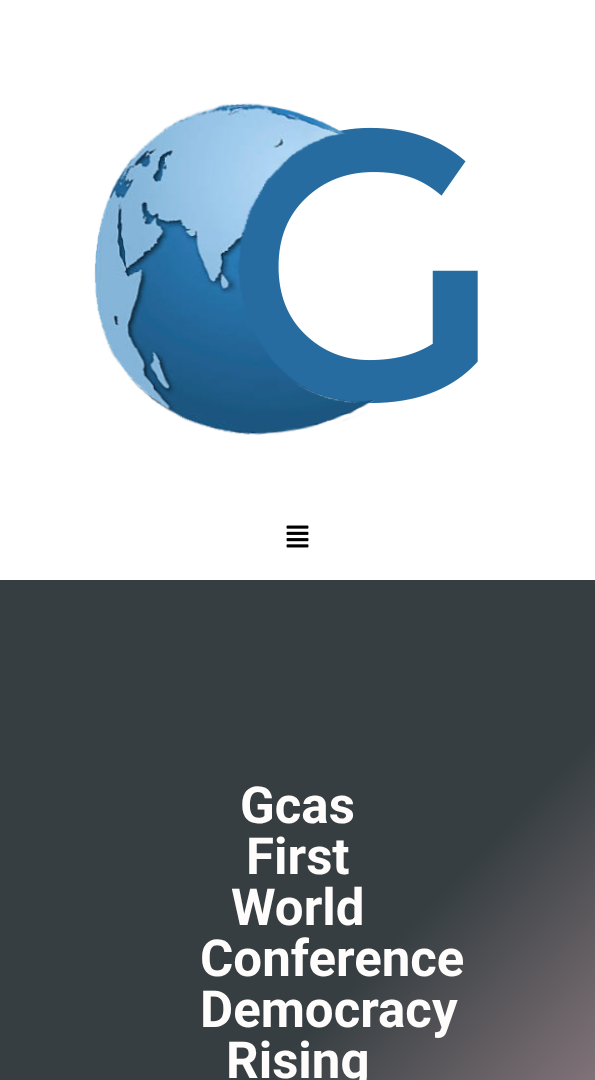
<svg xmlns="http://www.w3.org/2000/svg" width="595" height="1080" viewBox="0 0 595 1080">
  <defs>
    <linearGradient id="g1" gradientUnits="userSpaceOnUse" x1="-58" y1="640" x2="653" y2="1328"><stop offset="0.54" stop-color="rgb(54,62,65)"/><stop offset="1" stop-color="rgb(194,161,169)"/></linearGradient>
  </defs>
  <rect width="100%" height="100%" fill="rgb(255,255,255)"/>
  <image x="94" y="103" width="384" height="333" href="pic1.png"/>
  <image x="286" y="525" width="23" height="23" href="pic2.png"/>
  <rect x="0" y="580" width="595" height="500" fill="url(#g1)"/>
  <g font-family="Roboto" font-size="51" font-weight="bold" fill="rgb(255,252,252)">
    <text x="240" y="823">Gcas</text>
    <text x="246" y="874">First</text>
    <text x="231" y="925">World</text>
    <text>
      <tspan x="200" y="976">Conference</tspan>
      <tspan x="200" y="1027">Democracy</tspan>
    </text>
    <text x="226" y="1078">Rising</text>
  </g>
</svg>
